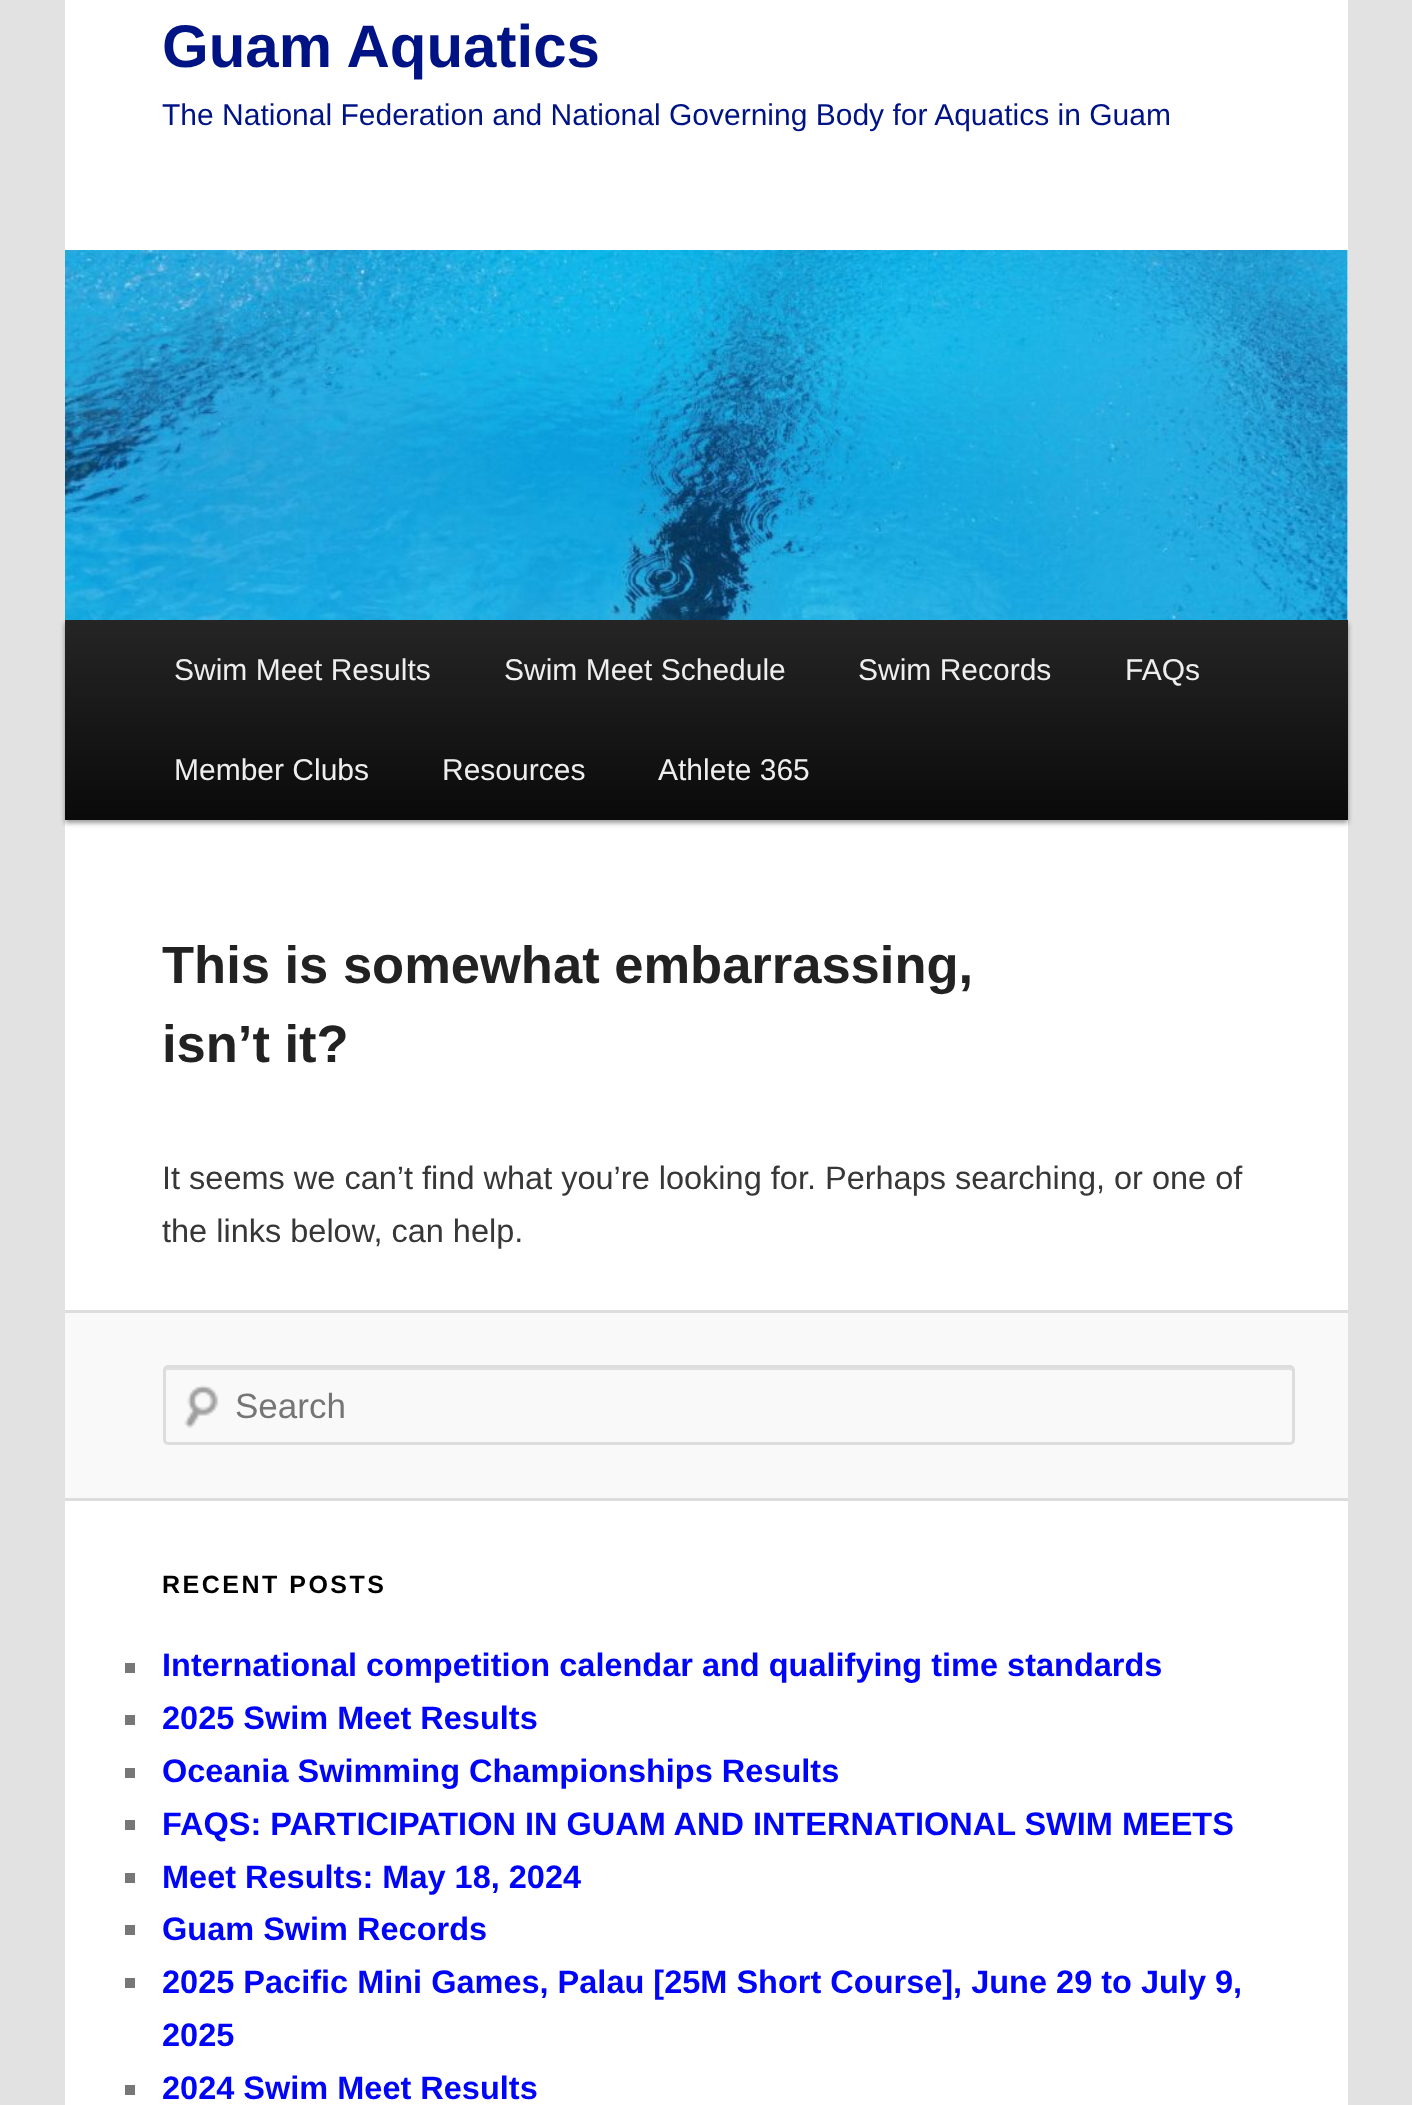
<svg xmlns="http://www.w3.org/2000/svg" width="1412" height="2105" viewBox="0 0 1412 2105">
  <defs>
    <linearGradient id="g1" gradientUnits="userSpaceOnUse" x1="706" y1="620" x2="706" y2="820"><stop offset="0" stop-color="rgb(37,37,37)"/><stop offset="1" stop-color="rgb(10,10,10)"/></linearGradient>
  </defs>
  <rect width="100%" height="100%" fill="rgb(226,226,226)"/>
  <rect x="65" y="0" width="1283" height="2105" fill="rgb(255,255,255)"/>
  <text x="162" y="67" font-family="Liberation Sans" font-size="60" font-weight="bold" fill="rgb(0,19,132)">Guam Aquatics</text>
  <text x="162" y="125" font-family="Liberation Sans" font-size="30" fill="rgb(0,19,132)">The National Federation and National Governing Body for Aquatics in Guam</text>
  <rect x="65" y="623" width="1283" height="200" fill="rgba(0,0,0,0.4)" filter="blur(2.5px)"/>
  <image x="65" y="250" width="1283" height="370" href="pic1.png"/>
  <rect x="65" y="620" width="1283" height="200" fill="url(#g1)"/>
  <g font-family="Liberation Sans" font-size="30" fill="rgb(238,238,238)">
    <text x="174" y="680">Swim Meet Results</text>
    <text x="504" y="680">Swim Meet Schedule</text>
    <text x="858" y="680">Swim Records</text>
    <text x="1125" y="680">FAQs</text>
    <text x="174" y="780">Member Clubs</text>
    <text x="442" y="780">Resources</text>
    <text x="658" y="780">Athlete 365</text>
  </g>
  <g font-family="Liberation Sans" font-size="52.5" font-weight="bold" fill="rgb(34,34,34)">
    <text>
      <tspan x="162" y="983">This is somewhat embarrassing,</tspan>
      <tspan x="162" y="1062">isn’t it?</tspan>
    </text>
  </g>
  <g font-family="Liberation Sans" font-size="32.5" fill="rgb(55,55,55)">
    <text>
      <tspan x="162" y="1189">It seems we can’t find what you’re looking for. Perhaps searching, or one of</tspan>
      <tspan x="162" y="1242">the links below, can help.</tspan>
    </text>
  </g>
  <rect x="65" y="1313" width="1283" height="185" fill="rgb(249,249,249)"/>
  <rect x="65" y="1310" width="1283" height="3" fill="rgb(221,221,221)"/>
  <rect x="65" y="1498" width="1283" height="3" fill="rgb(221,221,221)"/>
  <image x="184" y="1385" width="35" height="43" href="pic2.png"/>
  <path d="M168 1370H1290C1291 1370 1292 1371 1292 1372V1443C1293 1442 1293 1441 1293 1440V1370C1293 1369 1292 1368 1290 1368H168C166 1368 165 1369 165 1370V1372C165 1371 166 1370 168 1370Z" fill="rgb(224,224,224)"/>
  <rect x="164.5" y="1366.5" width="1129" height="77" rx="3.5" fill="none" stroke="rgb(221,221,221)" stroke-width="3"/>
  <text x="235" y="1418" font-family="Liberation Sans" font-size="35" fill="rgb(117,117,117)">Search</text>
  <text x="162" y="1593" font-family="Liberation Sans" font-size="25" font-weight="bold" letter-spacing="2.5" fill="rgb(0,0,0)">RECENT POSTS</text>
  <rect x="125" y="1663" width="10" height="10" fill="rgb(119,119,119)"/>
  <text x="162" y="1676" font-family="Liberation Sans" font-size="32.5" font-weight="bold" fill="rgb(0,4,247)">International competition calendar and qualifying time standards</text>
  <rect x="125" y="1715" width="10" height="10" fill="rgb(119,119,119)"/>
  <text x="162" y="1729" font-family="Liberation Sans" font-size="32.5" font-weight="bold" fill="rgb(0,4,247)">2025 Swim Meet Results</text>
  <rect x="125" y="1768" width="10" height="10" fill="rgb(119,119,119)"/>
  <text x="162" y="1782" font-family="Liberation Sans" font-size="32.5" font-weight="bold" fill="rgb(0,4,247)">Oceania Swimming Championships Results</text>
  <rect x="125" y="1820" width="10" height="10" fill="rgb(119,119,119)"/>
  <text x="162" y="1835" font-family="Liberation Sans" font-size="32.5" font-weight="bold" fill="rgb(0,4,247)">FAQS: PARTICIPATION IN GUAM AND INTERNATIONAL SWIM MEETS</text>
  <rect x="125" y="1873" width="10" height="10" fill="rgb(119,119,119)"/>
  <text x="162" y="1888" font-family="Liberation Sans" font-size="32.5" font-weight="bold" fill="rgb(0,4,247)">Meet Results: May 18, 2024</text>
  <rect x="125" y="1925" width="10" height="10" fill="rgb(119,119,119)"/>
  <text x="162" y="1940" font-family="Liberation Sans" font-size="32.5" font-weight="bold" fill="rgb(0,4,247)">Guam Swim Records</text>
  <rect x="125" y="1978" width="10" height="10" fill="rgb(119,119,119)"/>
  <g font-family="Liberation Sans" font-size="32.5" font-weight="bold" fill="rgb(0,4,247)">
    <text>
      <tspan x="162" y="1993">2025 Pacific Mini Games, Palau [25M Short Course], June 29 to July 9,</tspan>
      <tspan x="162" y="2046">2025</tspan>
    </text>
  </g>
  <rect x="125" y="2085" width="10" height="10" fill="rgb(119,119,119)"/>
  <text x="162" y="2099" font-family="Liberation Sans" font-size="32.5" font-weight="bold" fill="rgb(0,4,247)">2024 Swim Meet Results</text>
</svg>
